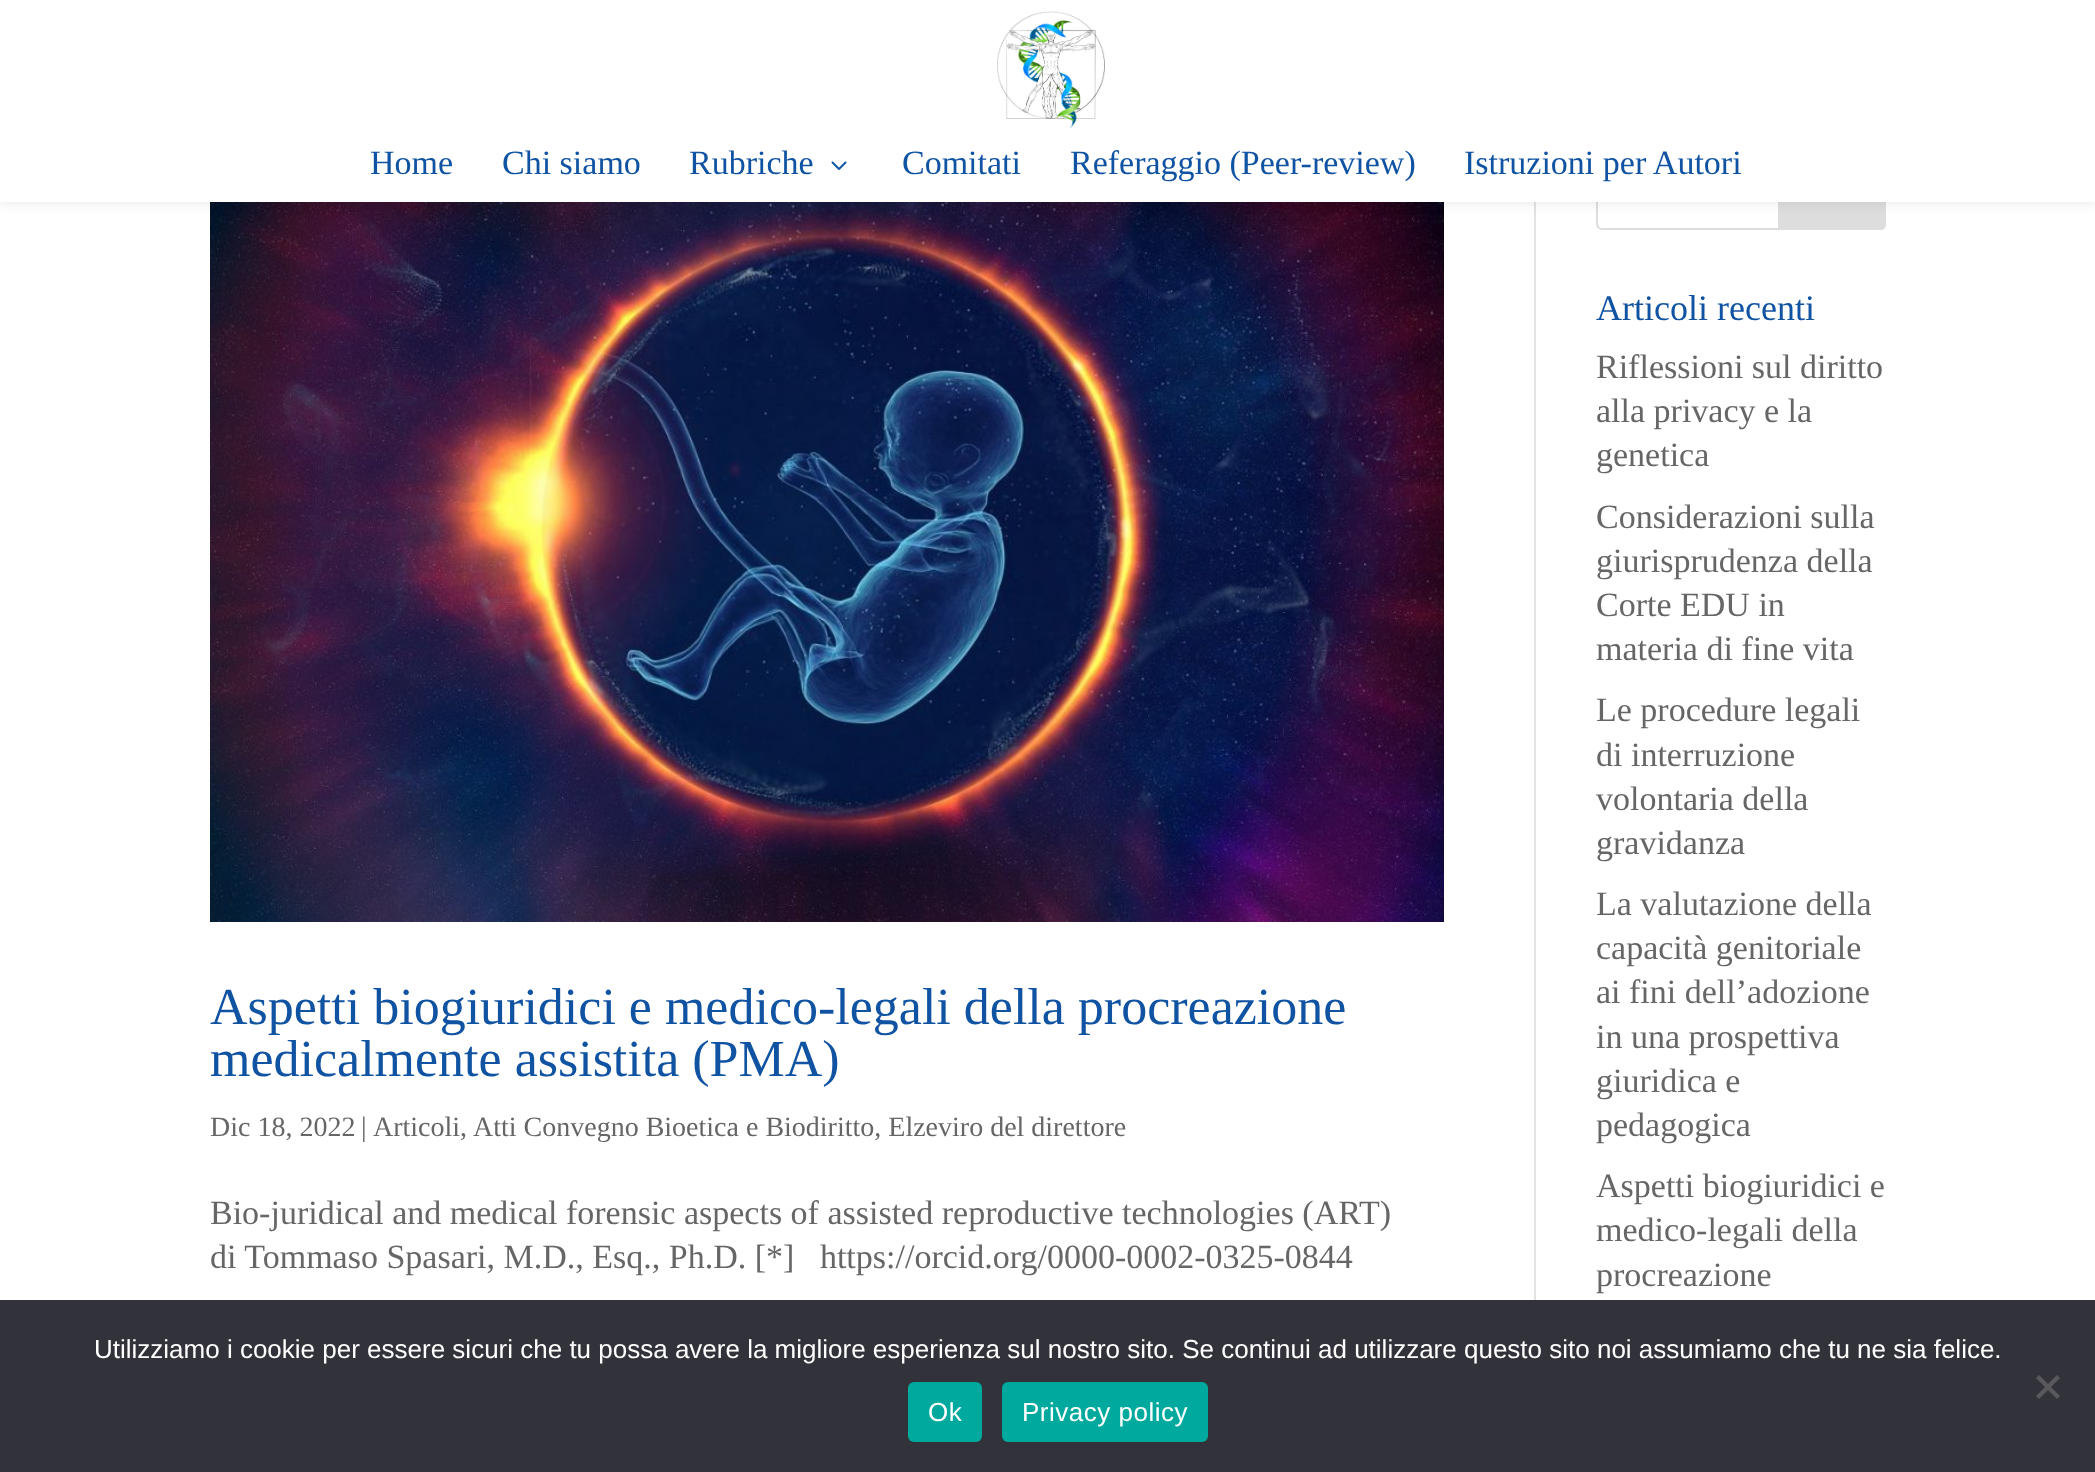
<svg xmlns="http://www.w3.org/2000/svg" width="2095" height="1472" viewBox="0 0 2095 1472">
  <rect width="100%" height="100%" fill="rgb(255,255,255)"/>
  <rect x="1534" y="202" width="2" height="1098" fill="rgb(226,226,226)"/>
  <image x="210" y="202" width="1234" height="720" href="pic3.png"/>
  <rect x="1597" y="151" width="288" height="78" rx="5" fill="none" stroke="rgb(221,221,221)" stroke-width="2"/>
  <path d="M1779 151H1880C1883 151 1885 153 1885 156V224C1885 227 1883 229 1880 229H1779Z" fill="rgb(221,221,221)" stroke="rgb(221,221,221)" stroke-width="2"/>
  <rect x="0" y="0" width="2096" height="202" fill="rgba(0,0,0,0.1)" filter="blur(7px)"/>
  <rect x="0" y="0" width="2095" height="202" fill="rgb(255,255,255)"/>
  <image x="997" y="11" width="108" height="118" href="pic1.png"/>
  <g font-family="Liberation Serif" font-size="34" fill="rgb(16,83,162)">
    <text x="370" y="174">Home</text>
    <text x="502" y="174">Chi siamo</text>
    <text x="689" y="174">Rubriche</text>
  </g>
  <image x="831" y="161" width="16" height="9" href="pic2.png"/>
  <g font-family="Liberation Serif" font-size="34" fill="rgb(16,83,162)">
    <text x="902" y="174">Comitati</text>
    <text x="1070" y="174">Referaggio (Peer-review)</text>
    <text x="1464" y="174">Istruzioni per Autori</text>
  </g>
  <g font-family="Liberation Serif" font-size="52" fill="rgb(16,83,162)">
    <text>
      <tspan x="210" y="1024">Aspetti biogiuridici e medico-legali della procreazione</tspan>
      <tspan x="210" y="1076">medicalmente assistita (PMA)</tspan>
    </text>
  </g>
  <g font-family="Liberation Serif" font-size="28" fill="rgb(102,102,102)">
    <text x="210" y="1136">Dic 18, 2022</text>
    <text x="361" y="1136">|</text>
    <text x="373" y="1136">Articoli,</text>
    <text x="473" y="1136">Atti Convegno Bioetica e Biodiritto, Elzeviro del direttore</text>
  </g>
  <g font-family="Liberation Serif" font-size="34" fill="rgb(102,102,102)">
    <text xml:space="preserve"><tspan x="210" y="1224">Bio-juridical and medical forensic aspects of assisted reproductive technologies (ART)</tspan><tspan x="210" y="1268">di Tommaso Spasari, M.D., Esq., Ph.D. [*]   https://orcid.org/0000-0002-0325-0844</tspan></text>
  </g>
  <text x="1596" y="320" font-family="Liberation Serif" font-size="36" fill="rgb(16,83,162)">Articoli recenti</text>
  <g font-family="Liberation Serif" font-size="34" fill="rgb(102,102,102)">
    <text>
      <tspan x="1596" y="378">Riflessioni sul diritto</tspan>
      <tspan x="1596" y="422">alla privacy e la</tspan>
      <tspan x="1596" y="466">genetica</tspan>
      <tspan x="1596" y="528">Considerazioni sulla</tspan>
      <tspan x="1596" y="572">giurisprudenza della</tspan>
      <tspan x="1596" y="616">Corte EDU in</tspan>
      <tspan x="1596" y="660">materia di fine vita</tspan>
      <tspan x="1596" y="721">Le procedure legali</tspan>
      <tspan x="1596" y="766">di interruzione</tspan>
      <tspan x="1596" y="810">volontaria della</tspan>
      <tspan x="1596" y="854">gravidanza</tspan>
      <tspan x="1596" y="915">La valutazione della</tspan>
      <tspan x="1596" y="959">capacità genitoriale</tspan>
      <tspan x="1596" y="1003">ai fini dell’adozione</tspan>
      <tspan x="1596" y="1048">in una prospettiva</tspan>
      <tspan x="1596" y="1092">giuridica e</tspan>
      <tspan x="1596" y="1136">pedagogica</tspan>
      <tspan x="1596" y="1197">Aspetti biogiuridici e</tspan>
      <tspan x="1596" y="1241">medico-legali della</tspan>
      <tspan x="1596" y="1286">procreazione</tspan>
    </text>
  </g>
  <rect x="0" y="1300" width="2095" height="172" fill="rgb(50,50,58)"/>
  <text x="94" y="1358" font-family="Liberation Sans" font-size="26" fill="rgb(255,255,255)">Utilizziamo i cookie per essere sicuri che tu possa avere la migliore esperienza sul nostro sito. Se continui ad utilizzare questo sito noi assumiamo che tu ne sia felice.</text>
  <path d="M2057 1375L2060 1378L2039 1399L2036 1396Z" fill="rgb(89,89,93)"/>
  <path d="M2036 1378L2039 1375L2060 1396L2057 1399Z" fill="rgb(89,89,93)"/>
  <rect x="908" y="1382" width="74" height="60" rx="6" fill="rgb(0,169,157)"/>
  <text x="928" y="1421" font-family="Liberation Sans" font-size="26" letter-spacing="0.5" fill="rgb(255,255,255)">Ok</text>
  <rect x="1002" y="1382" width="206" height="60" rx="6" fill="rgb(0,169,157)"/>
  <text x="1022" y="1421" font-family="Liberation Sans" font-size="26" letter-spacing="0.5" fill="rgb(255,255,255)">Privacy policy</text>
</svg>
